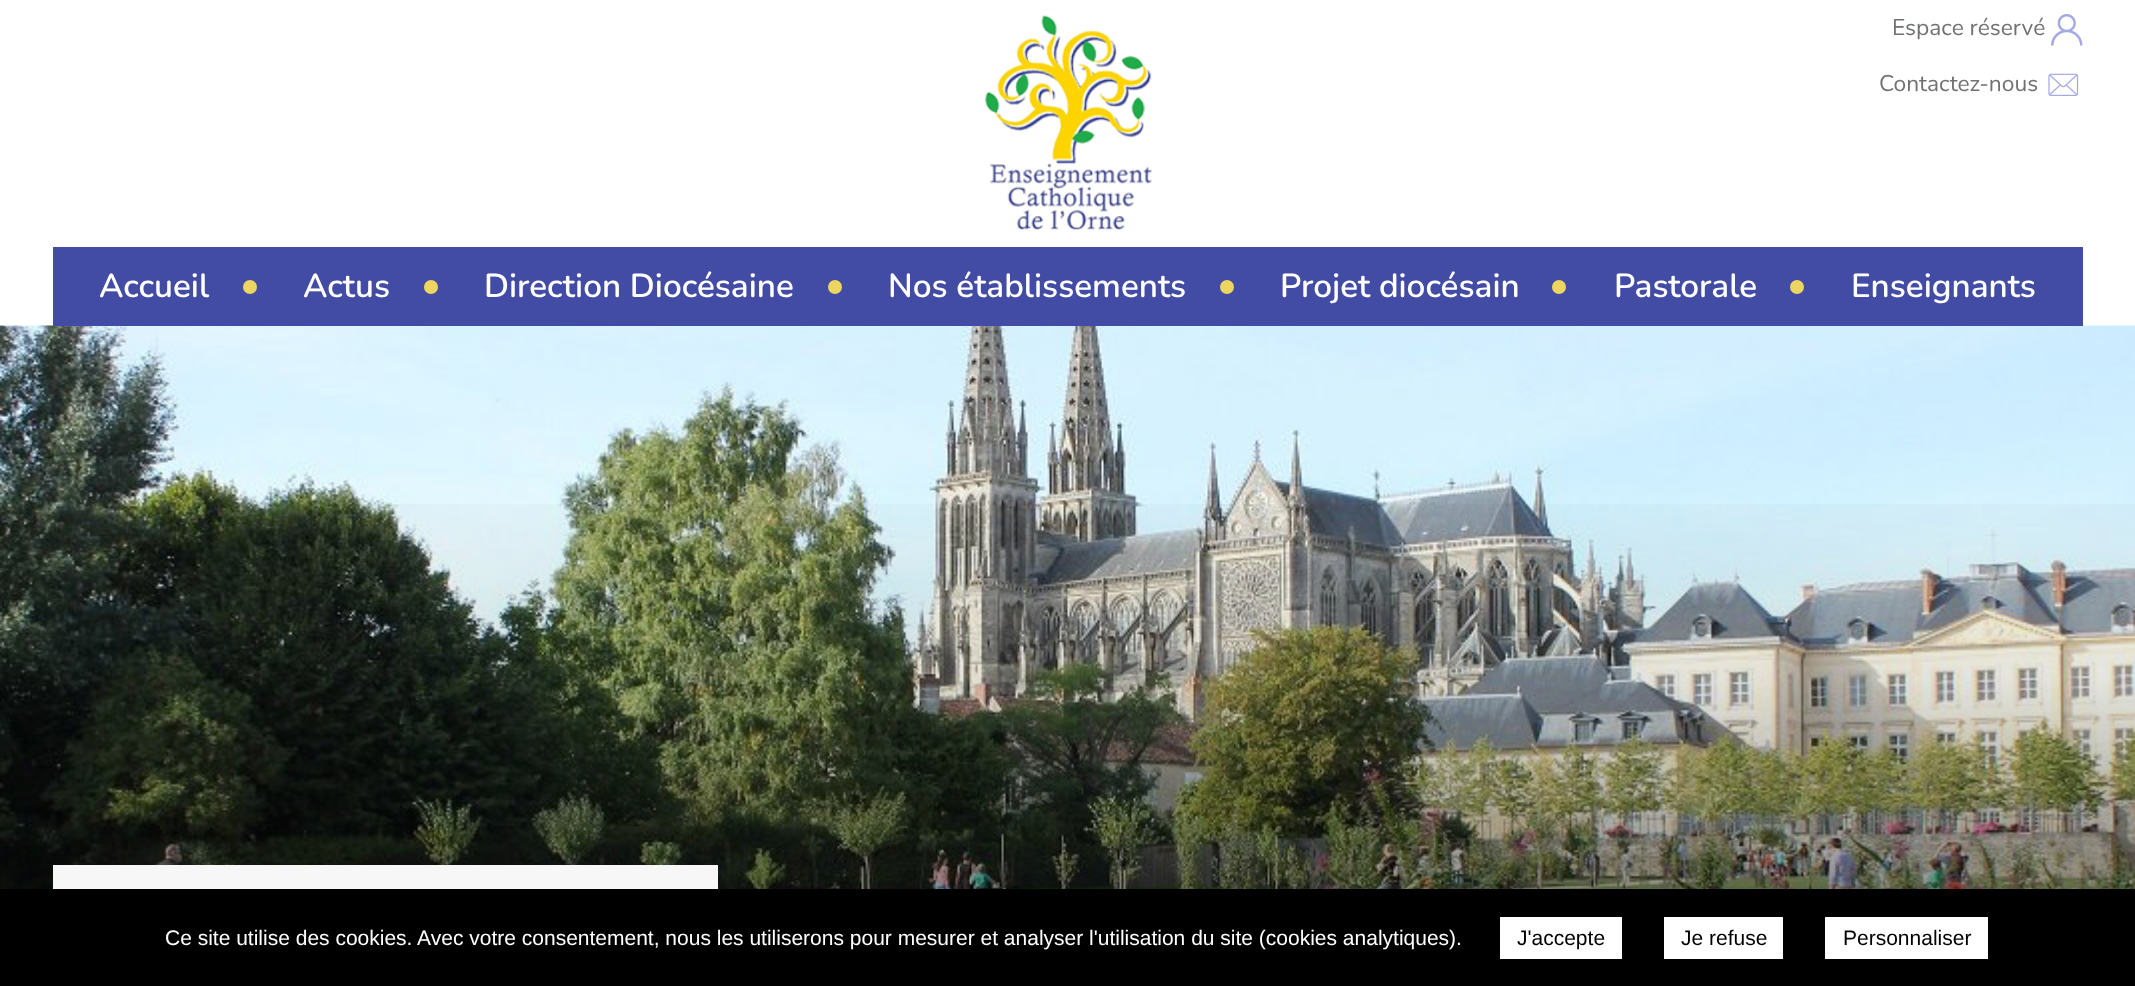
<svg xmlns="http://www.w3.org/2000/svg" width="2135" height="986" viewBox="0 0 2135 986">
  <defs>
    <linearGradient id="g1" gradientUnits="userSpaceOnUse" x1="1068" y1="325" x2="1068" y2="947"><stop offset="0.01" stop-color="rgb(0,0,0)" stop-opacity="0"/><stop offset="0.21" stop-color="rgb(0,0,0)" stop-opacity="0"/><stop offset="0.57" stop-color="rgb(0,0,0)" stop-opacity="0.1"/><stop offset="1" stop-color="rgb(0,0,0)" stop-opacity="0.5"/></linearGradient>
  </defs>
  <rect width="100%" height="100%" fill="rgb(255,255,255)"/>
  <image x="985" y="15" width="167" height="215" href="pic1.png"/>
  <text x="1892" y="35" font-family="Nunito" font-size="22.75" fill="rgb(112,113,115)">Espace réservé</text>
  <image x="2051" y="14" width="32" height="32" href="pic2.png"/>
  <text x="1879" y="91" font-family="Nunito" font-size="22.75" fill="rgb(112,113,115)">Contactez-nous</text>
  <image x="2048" y="73" width="31" height="23" href="pic3.png"/>
  <image x="0" y="325" width="2135" height="564" href="pic4.png"/>
  <rect x="53" y="247" width="2030" height="79" fill="rgb(67,76,165)"/>
  <text x="99" y="297" font-family="Nunito" font-size="33.25" font-weight="600" fill="rgb(255,255,255)">Accueil</text>
  <circle cx="250" cy="287" r="7" fill="rgb(236,214,95)"/>
  <text x="303" y="297" font-family="Nunito" font-size="33.25" font-weight="600" fill="rgb(255,255,255)">Actus</text>
  <circle cx="431" cy="287" r="7" fill="rgb(236,214,95)"/>
  <text x="484" y="297" font-family="Nunito" font-size="33.25" font-weight="600" fill="rgb(255,255,255)">Direction Diocésaine</text>
  <circle cx="835" cy="287" r="7" fill="rgb(236,214,95)"/>
  <text x="888" y="297" font-family="Nunito" font-size="33.25" font-weight="600" fill="rgb(255,255,255)">Nos établissements</text>
  <circle cx="1227" cy="287" r="7" fill="rgb(236,214,95)"/>
  <text x="1280" y="297" font-family="Nunito" font-size="33.25" font-weight="600" fill="rgb(255,255,255)">Projet diocésain</text>
  <circle cx="1559" cy="287" r="7" fill="rgb(236,214,95)"/>
  <text x="1614" y="297" font-family="Nunito" font-size="33.25" font-weight="600" fill="rgb(255,255,255)">Pastorale</text>
  <circle cx="1797" cy="287" r="7" fill="rgb(236,214,95)"/>
  <text x="1851" y="297" font-family="Nunito" font-size="33.25" font-weight="600" fill="rgb(255,255,255)">Enseignants</text>
  <rect x="0" y="504" width="2135" height="385" fill="url(#g1)"/>
  <rect x="53" y="865" width="665" height="24" fill="rgb(247,247,247)"/>
  <rect x="0" y="889" width="2135" height="97" fill="rgb(0,0,0)"/>
  <text x="165" y="945" font-family="Liberation Sans" font-size="21" fill="rgb(255,255,255)">Ce site utilise des cookies. Avec votre consentement, nous les utiliserons pour mesurer et analyser l'utilisation du site (cookies analytiques).</text>
  <rect x="1500" y="917" width="122" height="42" fill="rgb(255,255,255)"/>
  <text x="1517" y="945" font-family="Liberation Sans" font-size="21" fill="rgb(0,0,0)">J'accepte</text>
  <rect x="1664" y="917" width="119" height="42" fill="rgb(255,255,255)"/>
  <text x="1681" y="945" font-family="Liberation Sans" font-size="21" fill="rgb(0,0,0)">Je refuse</text>
  <rect x="1825" y="917" width="163" height="42" fill="rgb(255,255,255)"/>
  <text x="1843" y="945" font-family="Liberation Sans" font-size="21" fill="rgb(0,0,0)">Personnaliser</text>
</svg>
